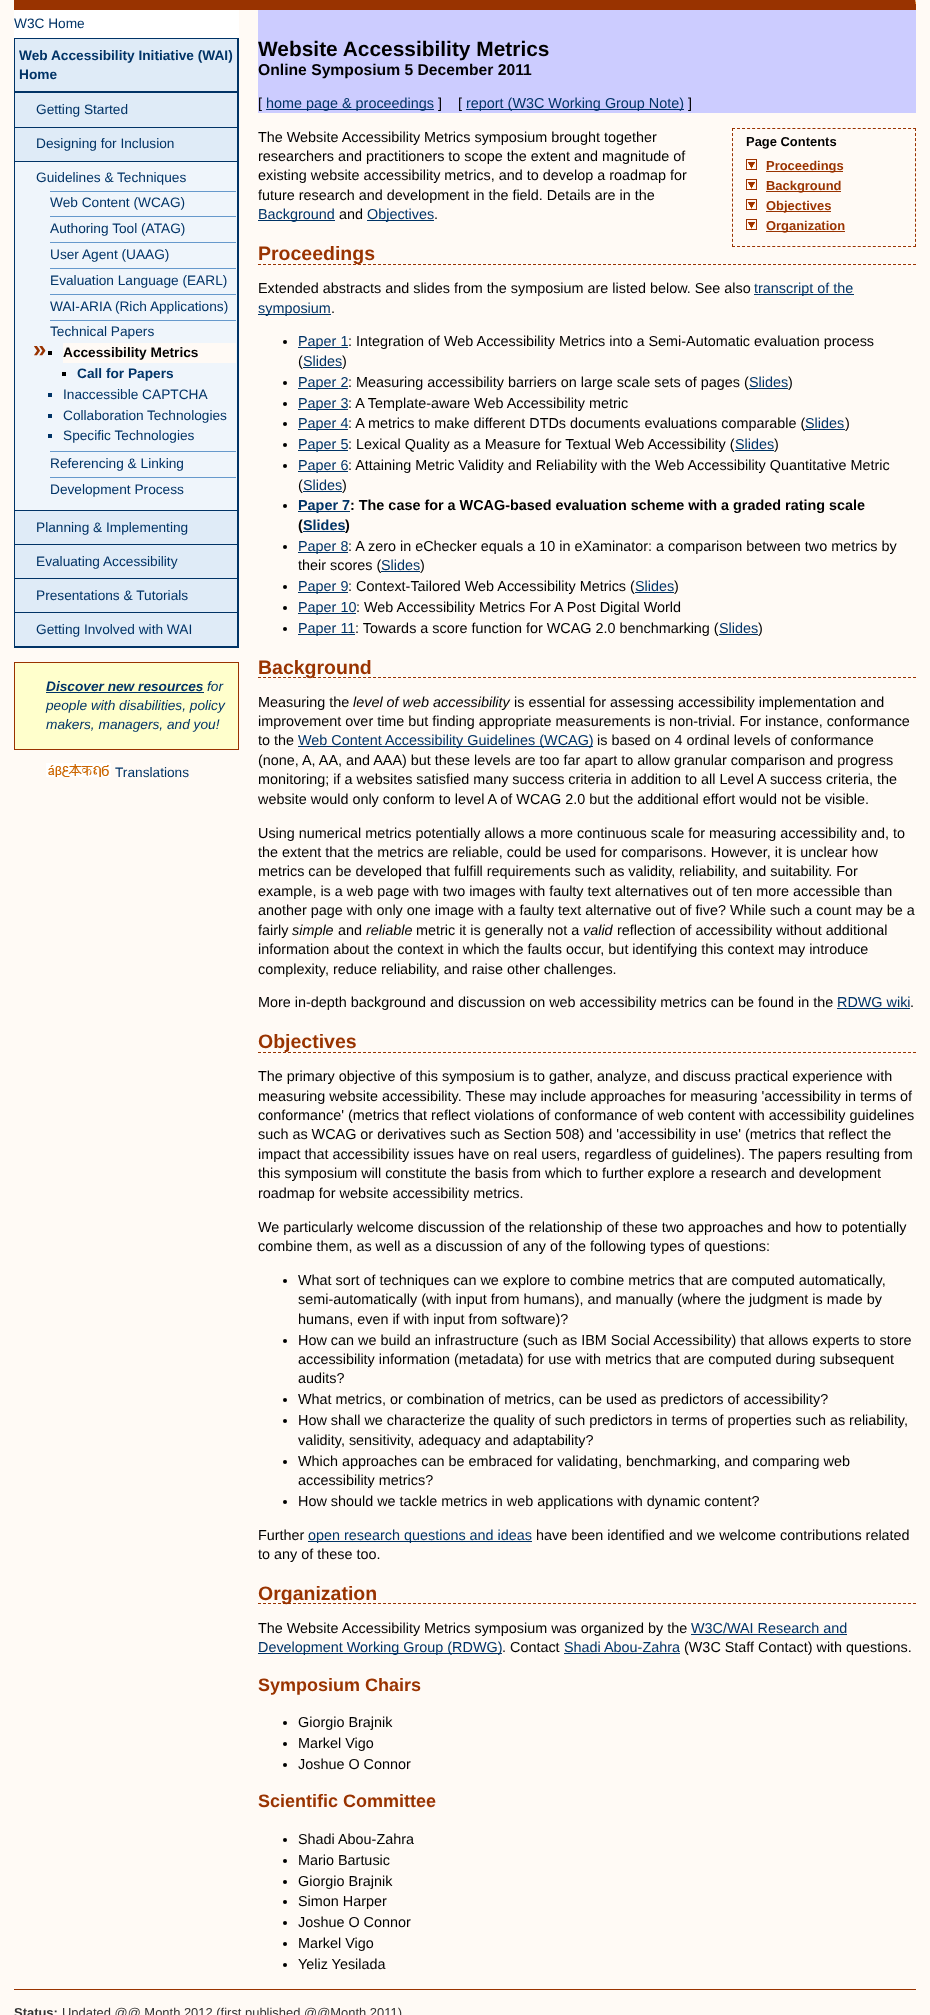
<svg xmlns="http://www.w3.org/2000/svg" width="930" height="2015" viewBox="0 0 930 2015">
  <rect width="100%" height="100%" fill="rgb(255,250,245)"/>
  <rect x="14" y="0" width="902" height="10" fill="rgb(153,51,0)"/>
  <image x="915" y="0" width="1" height="4" href="pic1.png"/>
  <rect x="14" y="10" width="225" height="28" fill="rgb(255,255,255)"/>
  <text x="14" y="28" font-family="Liberation Sans" font-size="13.7" fill="rgb(0,51,102)">W3C Home</text>
  <rect x="15" y="39" width="222" height="52" fill="rgb(223,235,247)"/>
  <rect x="14" y="38" width="225" height="1" fill="rgb(0,51,102)"/>
  <rect x="237" y="38" width="2" height="54" fill="rgb(0,51,102)"/>
  <rect x="14" y="91" width="225" height="2" fill="rgb(0,51,102)"/>
  <rect x="14" y="38" width="1" height="54" fill="rgb(0,51,102)"/>
  <g font-family="Liberation Sans" font-size="13.7" font-weight="bold" fill="rgb(0,51,102)">
    <text>
      <tspan x="19" y="60">Web Accessibility Initiative (WAI)</tspan>
      <tspan x="19" y="79">Home</tspan>
    </text>
  </g>
  <rect x="15" y="93" width="222" height="553" fill="rgb(223,235,247)"/>
  <rect x="237" y="92" width="2" height="556" fill="rgb(0,51,102)"/>
  <rect x="14" y="647" width="225" height="1" fill="rgb(0,51,102)"/>
  <rect x="14" y="92" width="1" height="556" fill="rgb(0,51,102)"/>
  <rect x="15" y="127" width="222" height="1" fill="rgb(0,51,102)"/>
  <text x="36" y="114" font-family="Liberation Sans" font-size="13.7" fill="rgb(0,51,102)">Getting Started</text>
  <rect x="15" y="161" width="222" height="1" fill="rgb(0,51,102)"/>
  <text x="36" y="148" font-family="Liberation Sans" font-size="13.7" fill="rgb(0,51,102)">Designing for Inclusion</text>
  <rect x="15" y="162" width="222" height="348" fill="rgb(239,245,251)"/>
  <rect x="15" y="510" width="222" height="1" fill="rgb(0,51,102)"/>
  <g font-family="Liberation Sans" font-size="13.7" fill="rgb(0,51,102)">
    <text x="36" y="182">Guidelines &amp;</text>
    <text x="117" y="182">Techniques</text>
  </g>
  <rect x="50" y="191" width="186" height="1" fill="rgb(102,153,204)"/>
  <text x="50" y="207" font-family="Liberation Sans" font-size="13.7" fill="rgb(0,51,102)">Web Content (WCAG)</text>
  <rect x="50" y="216" width="186" height="1" fill="rgb(102,153,204)"/>
  <text x="50" y="233" font-family="Liberation Sans" font-size="13.7" fill="rgb(0,51,102)">Authoring Tool (ATAG)</text>
  <rect x="50" y="242" width="186" height="1" fill="rgb(102,153,204)"/>
  <text x="50" y="259" font-family="Liberation Sans" font-size="13.7" fill="rgb(0,51,102)">User Agent (UAAG)</text>
  <rect x="50" y="268" width="186" height="1" fill="rgb(102,153,204)"/>
  <text x="50" y="285" font-family="Liberation Sans" font-size="13.7" fill="rgb(0,51,102)">Evaluation Language (EARL)</text>
  <rect x="50" y="294" width="186" height="1" fill="rgb(102,153,204)"/>
  <text x="50" y="311" font-family="Liberation Sans" font-size="13.7" fill="rgb(0,51,102)">WAI-ARIA (Rich Applications)</text>
  <rect x="50" y="320" width="186" height="1" fill="rgb(102,153,204)"/>
  <text x="50" y="336" font-family="Liberation Sans" font-size="13.7" fill="rgb(0,51,102)">Technical Papers</text>
  <rect x="63" y="343" width="173" height="20" fill="rgb(255,250,245)"/>
  <text x="33" y="357" font-family="Liberation Sans" font-size="24" font-weight="bold" fill="rgb(153,51,0)">»</text>
  <text x="63" y="357" font-family="Liberation Sans" font-size="13.7" font-weight="bold" fill="rgb(0,0,0)">Accessibility Metrics</text>
  <rect x="48" y="351" width="4" height="4" fill="rgb(0,0,0)"/>
  <rect x="62" y="372" width="4" height="4" fill="rgb(0,0,0)"/>
  <text x="77" y="378" font-family="Liberation Sans" font-size="13.7" font-weight="bold" fill="rgb(0,51,102)">Call for Papers</text>
  <rect x="48" y="393" width="4" height="4" fill="rgb(0,51,102)"/>
  <text x="63" y="399" font-family="Liberation Sans" font-size="13.7" fill="rgb(0,51,102)">Inaccessible CAPTCHA</text>
  <rect x="48" y="414" width="4" height="4" fill="rgb(0,51,102)"/>
  <g font-family="Liberation Sans" font-size="13.7" fill="rgb(0,51,102)">
    <text x="63" y="420">Collaboration</text>
    <text x="147" y="420">Technologies</text>
  </g>
  <rect x="48" y="434" width="4" height="4" fill="rgb(0,51,102)"/>
  <text x="63" y="440" font-family="Liberation Sans" font-size="13.7" fill="rgb(0,51,102)">Specific Technologies</text>
  <rect x="50" y="451" width="186" height="1" fill="rgb(102,153,204)"/>
  <text x="50" y="468" font-family="Liberation Sans" font-size="13.7" fill="rgb(0,51,102)">Referencing &amp; Linking</text>
  <rect x="50" y="477" width="186" height="1" fill="rgb(102,153,204)"/>
  <text x="50" y="494" font-family="Liberation Sans" font-size="13.7" fill="rgb(0,51,102)">Development Process</text>
  <rect x="15" y="544" width="222" height="1" fill="rgb(0,51,102)"/>
  <text x="36" y="532" font-family="Liberation Sans" font-size="13.7" fill="rgb(0,51,102)">Planning &amp; Implementing</text>
  <rect x="15" y="578" width="222" height="1" fill="rgb(0,51,102)"/>
  <text x="36" y="566" font-family="Liberation Sans" font-size="13.7" fill="rgb(0,51,102)">Evaluating Accessibility</text>
  <rect x="15" y="612" width="222" height="1" fill="rgb(0,51,102)"/>
  <text x="36" y="600" font-family="Liberation Sans" font-size="13.7" fill="rgb(0,51,102)">Presentations &amp; Tutorials</text>
  <rect x="15" y="646" width="222" height="1" fill="rgb(0,51,102)"/>
  <text x="36" y="634" font-family="Liberation Sans" font-size="13.7" fill="rgb(0,51,102)">Getting Involved with WAI</text>
  <rect x="14.5" y="662.5" width="224" height="87" fill="rgb(255,255,204)" stroke="rgb(153,51,0)"/>
  <text x="46" y="691" font-family="Liberation Sans" font-size="13.7" font-weight="bold" font-style="italic" fill="rgb(0,51,102)">Discover new resources</text>
  <rect x="46" y="692" width="158" height="1" fill="rgb(0,51,102)"/>
  <g font-family="Liberation Sans" font-size="13.7" font-style="italic" fill="rgb(0,51,102)">
    <text x="207" y="691">for</text>
    <text>
      <tspan x="46" y="710">people with disabilities, policy</tspan>
      <tspan x="46" y="729">makers, managers, and you!</tspan>
    </text>
  </g>
  <image x="46" y="763" width="65" height="14" href="pic2.png"/>
  <text x="115" y="777" font-family="Liberation Sans" font-size="13.7" fill="rgb(0,51,102)">Translations</text>
  <rect x="258" y="10" width="658" height="103" fill="rgb(204,204,255)"/>
  <text x="258" y="56" font-family="Liberation Sans" font-size="20.9" font-weight="bold" fill="rgb(0,0,0)">Website Accessibility Metrics</text>
  <text x="258" y="75" font-family="Liberation Sans" font-size="15.7" font-weight="bold" fill="rgb(0,0,0)">Online Symposium 5 December 2011</text>
  <text x="258" y="108" font-family="Liberation Sans" font-size="14.4" fill="rgb(0,0,0)">[</text>
  <rect x="266" y="109" width="168" height="1" fill="rgb(0,51,102)"/>
  <text x="266" y="108" font-family="Liberation Sans" font-size="14.4" fill="rgb(0,51,102)">home page &amp; proceedings</text>
  <text x="438" y="108" font-family="Liberation Sans" font-size="14.4" fill="rgb(0,0,0)" xml:space="preserve">]    [</text>
  <rect x="466" y="109" width="218" height="1" fill="rgb(0,51,102)"/>
  <text x="466" y="108" font-family="Liberation Sans" font-size="14.4" fill="rgb(0,51,102)">report (W3C Working Group Note)</text>
  <g font-family="Liberation Sans" font-size="14.4" fill="rgb(0,0,0)">
    <text x="688" y="108">]</text>
    <text>
      <tspan x="258" y="142">The Website Accessibility Metrics symposium brought together</tspan>
      <tspan x="258" y="161">researchers and practitioners to scope the extent and magnitude of</tspan>
      <tspan x="258" y="180">existing website accessibility metrics, and to develop a roadmap for</tspan>
      <tspan x="258" y="200">future research and development in the field. Details are in the</tspan>
    </text>
  </g>
  <rect x="258" y="220" width="77" height="1" fill="rgb(0,51,102)"/>
  <text x="258" y="219" font-family="Liberation Sans" font-size="14.4" fill="rgb(0,51,102)">Background</text>
  <text x="339" y="219" font-family="Liberation Sans" font-size="14.4" fill="rgb(0,0,0)">and</text>
  <rect x="367" y="220" width="67" height="1" fill="rgb(0,51,102)"/>
  <text x="367" y="219" font-family="Liberation Sans" font-size="14.4" fill="rgb(0,51,102)">Objectives</text>
  <text x="434" y="219" font-family="Liberation Sans" font-size="14.4" fill="rgb(0,0,0)">.</text>
  <path d="M732 128.5H916" fill="none" stroke="rgb(153,51,0)" stroke-dasharray="3 2.03"/>
  <path d="M915.5 128V247" fill="none" stroke="rgb(153,51,0)" stroke-dasharray="3 2.04"/>
  <path d="M732 246.5H916" fill="none" stroke="rgb(153,51,0)" stroke-dasharray="3 2.03"/>
  <path d="M732.5 128V247" fill="none" stroke="rgb(153,51,0)" stroke-dasharray="3 2.04"/>
  <text x="746" y="146" font-family="Liberation Sans" font-size="12.95" font-weight="bold" fill="rgb(0,0,0)">Page Contents</text>
  <image x="746" y="159" width="11" height="11" href="pic3.png"/>
  <rect x="766" y="171" width="77" height="1" fill="rgb(153,51,0)"/>
  <text x="766" y="170" font-family="Liberation Sans" font-size="12.95" font-weight="bold" fill="rgb(153,51,0)">Proceedings</text>
  <image x="746" y="179" width="11" height="11" href="pic3.png"/>
  <rect x="766" y="191" width="75" height="1" fill="rgb(153,51,0)"/>
  <text x="766" y="190" font-family="Liberation Sans" font-size="12.95" font-weight="bold" fill="rgb(153,51,0)">Background</text>
  <image x="746" y="199" width="11" height="11" href="pic3.png"/>
  <rect x="766" y="211" width="65" height="1" fill="rgb(153,51,0)"/>
  <text x="766" y="210" font-family="Liberation Sans" font-size="12.95" font-weight="bold" fill="rgb(153,51,0)">Objectives</text>
  <image x="746" y="219" width="11" height="11" href="pic3.png"/>
  <rect x="766" y="231" width="79" height="1" fill="rgb(153,51,0)"/>
  <text x="766" y="230" font-family="Liberation Sans" font-size="12.95" font-weight="bold" fill="rgb(153,51,0)">Organization</text>
  <path d="M258 264.5H916" fill="none" stroke="rgb(153,51,0)" stroke-dasharray="3 2"/>
  <text x="258" y="260" font-family="Liberation Sans" font-size="19.5" font-weight="bold" fill="rgb(153,51,0)">Proceedings</text>
  <text x="258" y="293" font-family="Liberation Sans" font-size="14.4" fill="rgb(0,0,0)">Extended abstracts and slides from the symposium are listed below. See also</text>
  <rect x="754" y="294" width="100" height="1" fill="rgb(0,51,102)"/>
  <text x="754" y="293" font-family="Liberation Sans" font-size="14.4" fill="rgb(0,51,102)">transcript of the</text>
  <rect x="258" y="314" width="73" height="1" fill="rgb(0,51,102)"/>
  <text x="258" y="313" font-family="Liberation Sans" font-size="14.4" fill="rgb(0,51,102)">symposium</text>
  <text x="331" y="313" font-family="Liberation Sans" font-size="14.4" fill="rgb(0,0,0)">.</text>
  <circle cx="285" cy="342" r="2" fill="rgb(0,0,0)"/>
  <rect x="298" y="347" width="50" height="1" fill="rgb(0,51,102)"/>
  <text x="298" y="346" font-family="Liberation Sans" font-size="14.4" fill="rgb(0,51,102)">Paper 1</text>
  <g font-family="Liberation Sans" font-size="14.4" fill="rgb(0,0,0)">
    <text x="348" y="346">: Integration of Web Accessibility Metrics into a Semi-Automatic evaluation process</text>
    <text x="298" y="366">(</text>
  </g>
  <text x="303" y="366" font-family="Liberation Sans" font-size="14.4" fill="rgb(0,51,102)">Slides</text>
  <rect x="303" y="367" width="39" height="1" fill="rgb(0,51,102)"/>
  <text x="342" y="366" font-family="Liberation Sans" font-size="14.4" fill="rgb(0,0,0)">)</text>
  <circle cx="285" cy="383" r="2" fill="rgb(0,0,0)"/>
  <rect x="298" y="388" width="50" height="1" fill="rgb(0,51,102)"/>
  <text x="298" y="387" font-family="Liberation Sans" font-size="14.4" fill="rgb(0,51,102)">Paper 2</text>
  <text x="348" y="387" font-family="Liberation Sans" font-size="14.4" fill="rgb(0,0,0)">: Measuring accessibility barriers on large scale sets of pages (</text>
  <text x="749" y="387" font-family="Liberation Sans" font-size="14.4" fill="rgb(0,51,102)">Slides</text>
  <rect x="749" y="388" width="39" height="1" fill="rgb(0,51,102)"/>
  <text x="788" y="387" font-family="Liberation Sans" font-size="14.4" fill="rgb(0,0,0)">)</text>
  <circle cx="285" cy="404" r="2" fill="rgb(0,0,0)"/>
  <rect x="298" y="409" width="50" height="1" fill="rgb(0,51,102)"/>
  <text x="298" y="408" font-family="Liberation Sans" font-size="14.4" fill="rgb(0,51,102)">Paper 3</text>
  <text x="348" y="408" font-family="Liberation Sans" font-size="14.4" fill="rgb(0,0,0)">: A Template-aware Web Accessibility metric</text>
  <circle cx="285" cy="424" r="2" fill="rgb(0,0,0)"/>
  <rect x="298" y="429" width="50" height="1" fill="rgb(0,51,102)"/>
  <text x="298" y="428" font-family="Liberation Sans" font-size="14.4" fill="rgb(0,51,102)">Paper 4</text>
  <text x="348" y="428" font-family="Liberation Sans" font-size="14.4" fill="rgb(0,0,0)">: A metrics to make different DTDs documents evaluations comparable (</text>
  <text x="805" y="428" font-family="Liberation Sans" font-size="14.4" fill="rgb(0,51,102)">Slides</text>
  <rect x="805" y="429" width="40" height="1" fill="rgb(0,51,102)"/>
  <text x="845" y="428" font-family="Liberation Sans" font-size="14.4" fill="rgb(0,0,0)">)</text>
  <circle cx="285" cy="445" r="2" fill="rgb(0,0,0)"/>
  <rect x="298" y="450" width="50" height="1" fill="rgb(0,51,102)"/>
  <text x="298" y="449" font-family="Liberation Sans" font-size="14.4" fill="rgb(0,51,102)">Paper 5</text>
  <text x="348" y="449" font-family="Liberation Sans" font-size="14.4" fill="rgb(0,0,0)">: Lexical Quality as a Measure for Textual Web Accessibility (</text>
  <text x="735" y="449" font-family="Liberation Sans" font-size="14.4" fill="rgb(0,51,102)">Slides</text>
  <rect x="735" y="450" width="39" height="1" fill="rgb(0,51,102)"/>
  <text x="774" y="449" font-family="Liberation Sans" font-size="14.4" fill="rgb(0,0,0)">)</text>
  <circle cx="285" cy="466" r="2" fill="rgb(0,0,0)"/>
  <rect x="298" y="471" width="50" height="1" fill="rgb(0,51,102)"/>
  <text x="298" y="470" font-family="Liberation Sans" font-size="14.4" fill="rgb(0,51,102)">Paper 6</text>
  <g font-family="Liberation Sans" font-size="14.4" fill="rgb(0,0,0)">
    <text x="348" y="470">: Attaining Metric Validity and Reliability with the Web Accessibility Quantitative Metric</text>
    <text x="298" y="490">(</text>
  </g>
  <text x="303" y="490" font-family="Liberation Sans" font-size="14.4" fill="rgb(0,51,102)">Slides</text>
  <rect x="303" y="491" width="39" height="1" fill="rgb(0,51,102)"/>
  <text x="342" y="490" font-family="Liberation Sans" font-size="14.4" fill="rgb(0,0,0)">)</text>
  <circle cx="285" cy="506" r="2" fill="rgb(0,0,0)"/>
  <rect x="298" y="511" width="52" height="1" fill="rgb(0,51,102)"/>
  <text x="298" y="510" font-family="Liberation Sans" font-size="14.4" font-weight="bold" fill="rgb(0,51,102)">Paper 7</text>
  <g font-family="Liberation Sans" font-size="14.4" font-weight="bold" fill="rgb(0,0,0)">
    <text x="350" y="510">: The case for a WCAG-based evaluation scheme with a graded rating scale</text>
    <text x="298" y="530">(</text>
  </g>
  <rect x="303" y="531" width="42" height="1" fill="rgb(0,51,102)"/>
  <text x="303" y="530" font-family="Liberation Sans" font-size="14.4" font-weight="bold" fill="rgb(0,51,102)">Slides</text>
  <text x="345" y="530" font-family="Liberation Sans" font-size="14.4" font-weight="bold" fill="rgb(0,0,0)">)</text>
  <circle cx="285" cy="547" r="2" fill="rgb(0,0,0)"/>
  <rect x="298" y="552" width="50" height="1" fill="rgb(0,51,102)"/>
  <text x="298" y="551" font-family="Liberation Sans" font-size="14.4" fill="rgb(0,51,102)">Paper 8</text>
  <g font-family="Liberation Sans" font-size="14.4" fill="rgb(0,0,0)">
    <text x="348" y="551">: A zero in eChecker equals a 10 in eXaminator: a comparison between two metrics by</text>
    <text x="298" y="570">their scores (</text>
  </g>
  <text x="381" y="570" font-family="Liberation Sans" font-size="14.4" fill="rgb(0,51,102)">Slides</text>
  <rect x="381" y="571" width="39" height="1" fill="rgb(0,51,102)"/>
  <text x="420" y="570" font-family="Liberation Sans" font-size="14.4" fill="rgb(0,0,0)">)</text>
  <circle cx="285" cy="587" r="2" fill="rgb(0,0,0)"/>
  <rect x="298" y="592" width="50" height="1" fill="rgb(0,51,102)"/>
  <text x="298" y="591" font-family="Liberation Sans" font-size="14.4" fill="rgb(0,51,102)">Paper 9</text>
  <text x="348" y="591" font-family="Liberation Sans" font-size="14.4" fill="rgb(0,0,0)">: Context-Tailored Web Accessibility Metrics (</text>
  <text x="635" y="591" font-family="Liberation Sans" font-size="14.4" fill="rgb(0,51,102)">Slides</text>
  <rect x="635" y="592" width="39" height="1" fill="rgb(0,51,102)"/>
  <text x="674" y="591" font-family="Liberation Sans" font-size="14.4" fill="rgb(0,0,0)">)</text>
  <circle cx="285" cy="608" r="2" fill="rgb(0,0,0)"/>
  <rect x="298" y="613" width="58" height="1" fill="rgb(0,51,102)"/>
  <text x="298" y="612" font-family="Liberation Sans" font-size="14.4" fill="rgb(0,51,102)">Paper 10</text>
  <text x="356" y="612" font-family="Liberation Sans" font-size="14.4" fill="rgb(0,0,0)">: Web Accessibility Metrics For A Post Digital World</text>
  <circle cx="285" cy="629" r="2" fill="rgb(0,0,0)"/>
  <rect x="298" y="634" width="57" height="1" fill="rgb(0,51,102)"/>
  <text x="298" y="633" font-family="Liberation Sans" font-size="14.4" fill="rgb(0,51,102)">Paper 11</text>
  <text x="355" y="633" font-family="Liberation Sans" font-size="14.4" fill="rgb(0,0,0)">: Towards a score function for WCAG 2.0 benchmarking (</text>
  <text x="719" y="633" font-family="Liberation Sans" font-size="14.4" fill="rgb(0,51,102)">Slides</text>
  <rect x="719" y="634" width="39" height="1" fill="rgb(0,51,102)"/>
  <text x="758" y="633" font-family="Liberation Sans" font-size="14.4" fill="rgb(0,0,0)">)</text>
  <path d="M258 677.5H916" fill="none" stroke="rgb(153,51,0)" stroke-dasharray="3 2"/>
  <text x="258" y="674" font-family="Liberation Sans" font-size="19.5" font-weight="bold" fill="rgb(153,51,0)">Background</text>
  <text x="258" y="707" font-family="Liberation Sans" font-size="14.4" fill="rgb(0,0,0)">Measuring the</text>
  <text x="353" y="707" font-family="Liberation Sans" font-size="14.4" font-style="italic" fill="rgb(0,0,0)">level of web accessibility</text>
  <g font-family="Liberation Sans" font-size="14.4" fill="rgb(0,0,0)">
    <text x="514" y="707">is essential for assessing accessibility implementation and</text>
    <text>
      <tspan x="258" y="726">improvement over time but finding appropriate measurements is non-trivial. For instance, conformance</tspan>
      <tspan x="258" y="745">to the</tspan>
    </text>
  </g>
  <rect x="298" y="746" width="295" height="1" fill="rgb(0,51,102)"/>
  <text x="298" y="745" font-family="Liberation Sans" font-size="14.4" fill="rgb(0,51,102)">Web Content Accessibility Guidelines (WCAG)</text>
  <g font-family="Liberation Sans" font-size="14.4" fill="rgb(0,0,0)">
    <text x="597" y="745">is based on 4 ordinal levels of conformance</text>
    <text>
      <tspan x="258" y="765">(none, A, AA, and AAA) but these levels are too far apart to allow granular comparison and progress</tspan>
      <tspan x="258" y="784">monitoring; if a websites satisfied many success criteria in addition to all Level A success criteria, the</tspan>
      <tspan x="258" y="804">website would only conform to level A of WCAG 2.0 but the additional effort would not be visible.</tspan>
    </text>
    <text>
      <tspan x="258" y="838">Using numerical metrics potentially allows a more continuous scale for measuring accessibility and, to</tspan>
      <tspan x="258" y="857">the extent that the metrics are reliable, could be used for comparisons. However, it is unclear how</tspan>
      <tspan x="258" y="876">metrics can be developed that fulfill requirements such as validity, reliability, and suitability. For</tspan>
      <tspan x="258" y="896">example, is a web page with two images with faulty text alternatives out of ten more accessible than</tspan>
      <tspan x="258" y="915">another page with only one image with a faulty text alternative out of five? While such a count may be a</tspan>
      <tspan x="258" y="935">fairly</tspan>
    </text>
  </g>
  <text x="292" y="935" font-family="Liberation Sans" font-size="14.4" font-style="italic" fill="rgb(0,0,0)">simple</text>
  <text x="338" y="935" font-family="Liberation Sans" font-size="14.4" fill="rgb(0,0,0)">and</text>
  <text x="366" y="935" font-family="Liberation Sans" font-size="14.4" font-style="italic" fill="rgb(0,0,0)">reliable</text>
  <text x="416" y="935" font-family="Liberation Sans" font-size="14.4" fill="rgb(0,0,0)">metric it is generally not a</text>
  <text x="583" y="935" font-family="Liberation Sans" font-size="14.4" font-style="italic" fill="rgb(0,0,0)">valid</text>
  <g font-family="Liberation Sans" font-size="14.4" fill="rgb(0,0,0)">
    <text x="617" y="935">reflection of accessibility without additional</text>
    <text>
      <tspan x="258" y="954">information about the context in which the faults occur, but identifying this context may introduce</tspan>
      <tspan x="258" y="974">complexity, reduce reliability, and raise other challenges.</tspan>
    </text>
    <text x="258" y="1007">More in-depth background and discussion on web accessibility metrics can be found in the</text>
  </g>
  <text x="837" y="1007" font-family="Liberation Sans" font-size="14.4" fill="rgb(0,51,102)">RDWG wiki</text>
  <rect x="837" y="1008" width="73" height="1" fill="rgb(0,51,102)"/>
  <text x="910" y="1007" font-family="Liberation Sans" font-size="14.4" fill="rgb(0,0,0)">.</text>
  <path d="M258 1052.5H916" fill="none" stroke="rgb(153,51,0)" stroke-dasharray="3 2"/>
  <text x="258" y="1048" font-family="Liberation Sans" font-size="19.5" font-weight="bold" fill="rgb(153,51,0)">Objectives</text>
  <g font-family="Liberation Sans" font-size="14.4" fill="rgb(0,0,0)">
    <text>
      <tspan x="258" y="1081">The primary objective of this symposium is to gather, analyze, and discuss practical experience with</tspan>
      <tspan x="258" y="1101">measuring website accessibility. These may include approaches for measuring 'accessibility in terms of</tspan>
      <tspan x="258" y="1120">conformance' (metrics that reflect violations of conformance of web content with accessibility guidelines</tspan>
      <tspan x="258" y="1139">such as WCAG or derivatives such as Section 508) and 'accessibility in use' (metrics that reflect the</tspan>
      <tspan x="258" y="1159">impact that accessibility issues have on real users, regardless of guidelines). The papers resulting from</tspan>
      <tspan x="258" y="1178">this symposium will constitute the basis from which to further explore a research and development</tspan>
      <tspan x="258" y="1198">roadmap for website accessibility metrics.</tspan>
    </text>
    <text>
      <tspan x="258" y="1232">We particularly welcome discussion of the relationship of these two approaches and how to potentially</tspan>
      <tspan x="258" y="1251">combine them, as well as a discussion of any of the following types of questions:</tspan>
    </text>
  </g>
  <circle cx="285" cy="1281" r="2" fill="rgb(0,0,0)"/>
  <g font-family="Liberation Sans" font-size="14.4" fill="rgb(0,0,0)">
    <text>
      <tspan x="298" y="1285">What sort of techniques can we explore to combine metrics that are computed automatically,</tspan>
      <tspan x="298" y="1304">semi-automatically (with input from humans), and manually (where the judgment is made by</tspan>
      <tspan x="298" y="1324">humans, even if with input from software)?</tspan>
    </text>
  </g>
  <circle cx="285" cy="1341" r="2" fill="rgb(0,0,0)"/>
  <g font-family="Liberation Sans" font-size="14.4" fill="rgb(0,0,0)">
    <text>
      <tspan x="298" y="1345">How can we build an infrastructure (such as IBM Social Accessibility) that allows experts to store</tspan>
      <tspan x="298" y="1364">accessibility information (metadata) for use with metrics that are computed during subsequent</tspan>
      <tspan x="298" y="1383">audits?</tspan>
    </text>
  </g>
  <circle cx="285" cy="1400" r="2" fill="rgb(0,0,0)"/>
  <text x="298" y="1404" font-family="Liberation Sans" font-size="14.4" fill="rgb(0,0,0)">What metrics, or combination of metrics, can be used as predictors of accessibility?</text>
  <circle cx="285" cy="1421" r="2" fill="rgb(0,0,0)"/>
  <g font-family="Liberation Sans" font-size="14.4" fill="rgb(0,0,0)">
    <text>
      <tspan x="298" y="1425">How shall we characterize the quality of such predictors in terms of properties such as reliability,</tspan>
      <tspan x="298" y="1445">validity, sensitivity, adequacy and adaptability?</tspan>
    </text>
  </g>
  <circle cx="285" cy="1462" r="2" fill="rgb(0,0,0)"/>
  <g font-family="Liberation Sans" font-size="14.4" fill="rgb(0,0,0)">
    <text>
      <tspan x="298" y="1466">Which approaches can be embraced for validating, benchmarking, and comparing web</tspan>
      <tspan x="298" y="1485">accessibility metrics?</tspan>
    </text>
  </g>
  <circle cx="285" cy="1502" r="2" fill="rgb(0,0,0)"/>
  <g font-family="Liberation Sans" font-size="14.4" fill="rgb(0,0,0)">
    <text x="298" y="1506">How should we tackle metrics in web applications with dynamic content?</text>
    <text x="258" y="1540">Further</text>
  </g>
  <rect x="308" y="1541" width="224" height="1" fill="rgb(0,51,102)"/>
  <text x="308" y="1540" font-family="Liberation Sans" font-size="14.4" fill="rgb(0,51,102)">open research questions and ideas</text>
  <g font-family="Liberation Sans" font-size="14.4" fill="rgb(0,0,0)">
    <text x="536" y="1540">have been identified and we welcome contributions related</text>
    <text x="258" y="1559">to any of these too.</text>
  </g>
  <path d="M258 1603.5H916" fill="none" stroke="rgb(153,51,0)" stroke-dasharray="3 2"/>
  <text x="258" y="1600" font-family="Liberation Sans" font-size="19.5" font-weight="bold" fill="rgb(153,51,0)">Organization</text>
  <text x="258" y="1633" font-family="Liberation Sans" font-size="14.4" fill="rgb(0,0,0)">The Website Accessibility Metrics symposium was organized by the</text>
  <text x="691" y="1633" font-family="Liberation Sans" font-size="14.4" fill="rgb(0,51,102)">W3C/WAI Research and</text>
  <rect x="691" y="1634" width="156" height="1" fill="rgb(0,51,102)"/>
  <rect x="258" y="1653" width="244" height="1" fill="rgb(0,51,102)"/>
  <text x="258" y="1652" font-family="Liberation Sans" font-size="14.4" fill="rgb(0,51,102)">Development Working Group (RDWG)</text>
  <text x="502" y="1652" font-family="Liberation Sans" font-size="14.4" fill="rgb(0,0,0)">. Contact</text>
  <text x="564" y="1652" font-family="Liberation Sans" font-size="14.4" fill="rgb(0,51,102)">Shadi Abou-Zahra</text>
  <rect x="564" y="1653" width="116" height="1" fill="rgb(0,51,102)"/>
  <text x="684" y="1652" font-family="Liberation Sans" font-size="14.4" fill="rgb(0,0,0)">(W3C Staff Contact) with questions.</text>
  <text x="258" y="1691" font-family="Liberation Sans" font-size="18" font-weight="bold" fill="rgb(153,51,0)">Symposium Chairs</text>
  <circle cx="285" cy="1723" r="2" fill="rgb(0,0,0)"/>
  <text x="298" y="1727" font-family="Liberation Sans" font-size="14.4" fill="rgb(0,0,0)">Giorgio Brajnik</text>
  <circle cx="285" cy="1744" r="2" fill="rgb(0,0,0)"/>
  <text x="298" y="1748" font-family="Liberation Sans" font-size="14.4" fill="rgb(0,0,0)">Markel Vigo</text>
  <circle cx="285" cy="1765" r="2" fill="rgb(0,0,0)"/>
  <text x="298" y="1769" font-family="Liberation Sans" font-size="14.4" fill="rgb(0,0,0)">Joshue O Connor</text>
  <text x="258" y="1807" font-family="Liberation Sans" font-size="18" font-weight="bold" fill="rgb(153,51,0)">Scientific Committee</text>
  <circle cx="285" cy="1840" r="2" fill="rgb(0,0,0)"/>
  <text x="298" y="1844" font-family="Liberation Sans" font-size="14.4" fill="rgb(0,0,0)">Shadi Abou-Zahra</text>
  <circle cx="285" cy="1861" r="2" fill="rgb(0,0,0)"/>
  <text x="298" y="1865" font-family="Liberation Sans" font-size="14.4" fill="rgb(0,0,0)">Mario Bartusic</text>
  <circle cx="285" cy="1882" r="2" fill="rgb(0,0,0)"/>
  <text x="298" y="1886" font-family="Liberation Sans" font-size="14.4" fill="rgb(0,0,0)">Giorgio Brajnik</text>
  <circle cx="285" cy="1902" r="2" fill="rgb(0,0,0)"/>
  <text x="298" y="1906" font-family="Liberation Sans" font-size="14.4" fill="rgb(0,0,0)">Simon Harper</text>
  <circle cx="285" cy="1923" r="2" fill="rgb(0,0,0)"/>
  <text x="298" y="1927" font-family="Liberation Sans" font-size="14.4" fill="rgb(0,0,0)">Joshue O Connor</text>
  <circle cx="285" cy="1944" r="2" fill="rgb(0,0,0)"/>
  <text x="298" y="1948" font-family="Liberation Sans" font-size="14.4" fill="rgb(0,0,0)">Markel Vigo</text>
  <circle cx="285" cy="1965" r="2" fill="rgb(0,0,0)"/>
  <text x="298" y="1969" font-family="Liberation Sans" font-size="14.4" fill="rgb(0,0,0)">Yeliz Yesilada</text>
  <rect x="14" y="1989" width="902" height="1" fill="rgb(153,51,0)"/>
  <text x="14" y="2017" font-family="Liberation Sans" font-size="12.95" font-weight="bold" fill="rgb(51,51,51)">Status:</text>
  <text x="62" y="2017" font-family="Liberation Sans" font-size="12.95" fill="rgb(51,51,51)">Updated @@ Month 2012 (first published @@Month 2011)</text>
</svg>
